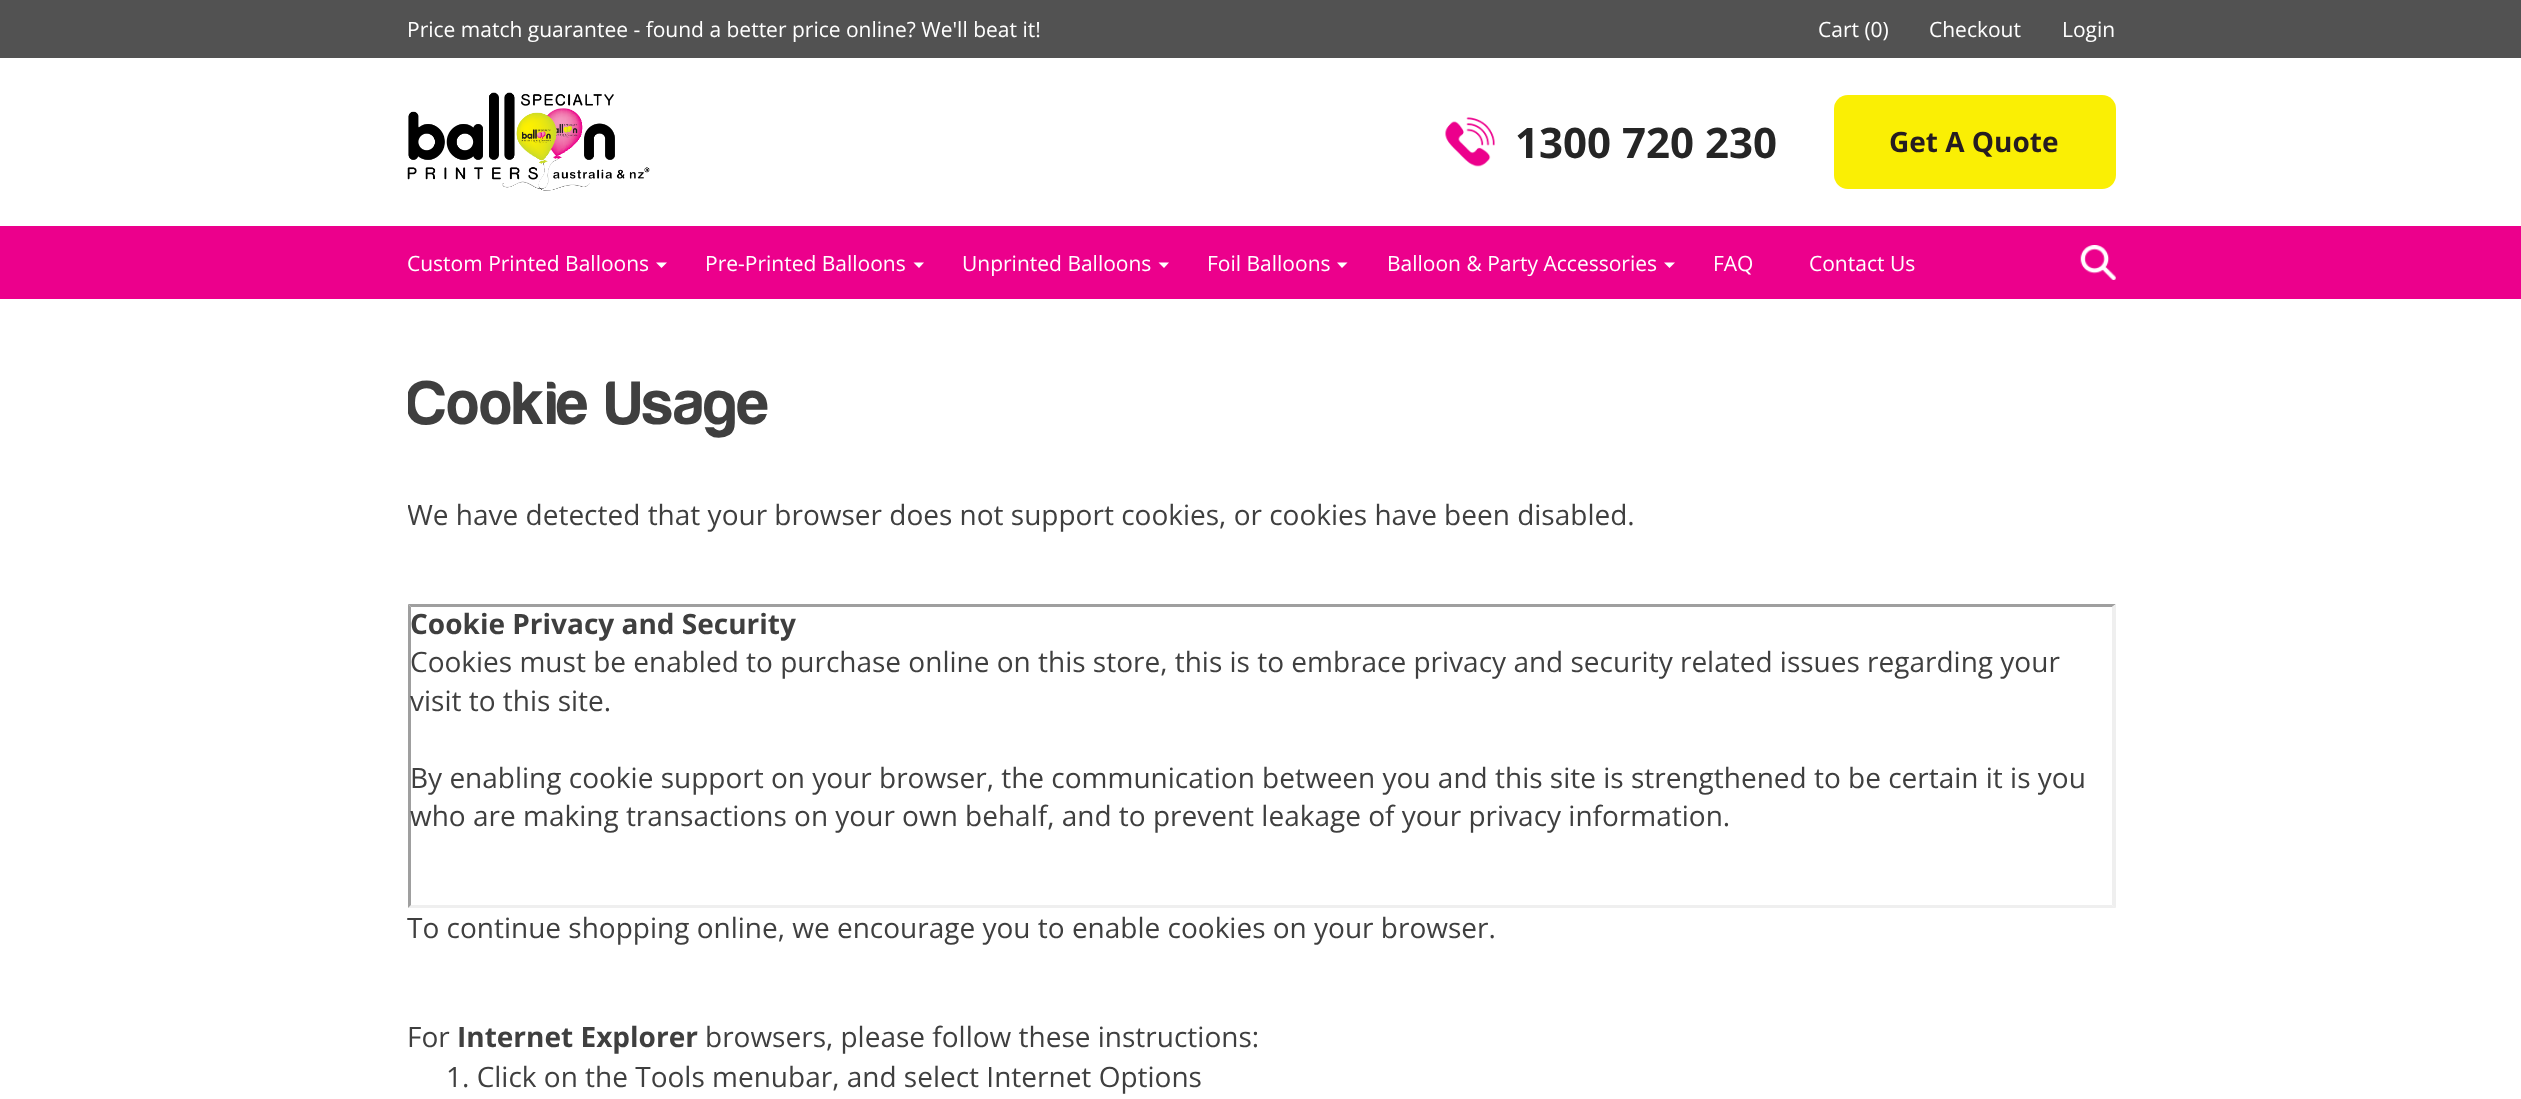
<svg xmlns="http://www.w3.org/2000/svg" width="2521" height="1099" viewBox="0 0 2521 1099">
  <defs>
    <clipPath id="clip1"><rect x="408" y="369" width="1708" height="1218"/></clipPath>
    <clipPath id="clip2"><rect x="408" y="495" width="1708" height="109"/></clipPath>
  </defs>
  <rect width="100%" height="100%" fill="rgb(255,255,255)"/>
  <rect x="0" y="0" width="2521" height="58" fill="rgb(82,82,82)"/>
  <g font-family="Open Sans" font-size="21" fill="rgb(255,255,255)">
    <text x="407" y="37">Price match guarantee - found a better price online? We'll beat it!</text>
    <text x="1818" y="37">Cart (0)</text>
    <text x="1929" y="37">Checkout</text>
    <text x="2062" y="37">Login</text>
  </g>
  <image x="407" y="92" width="243" height="99" href="pic1.png"/>
  <image x="1445" y="117" width="50" height="50" href="pic2.png"/>
  <text x="1515" y="158" font-family="Open Sans" font-size="42" font-weight="bold" fill="rgb(37,37,37)">1300 720 230</text>
  <rect x="1834" y="95" width="282" height="94" rx="14" fill="rgb(250,239,4)"/>
  <text x="1889" y="152" font-family="Open Sans" font-size="28" font-weight="bold" fill="rgb(37,28,33)">Get A Quote</text>
  <rect x="0" y="226" width="2521" height="73" fill="rgb(236,0,140)"/>
  <text x="407" y="271" font-family="Open Sans" font-size="21" fill="rgb(255,255,255)">Custom Printed Balloons</text>
  <path d="M656 262.5H667L661.5 268Z" fill="rgb(255,255,255)"/>
  <text x="705" y="271" font-family="Open Sans" font-size="21" fill="rgb(255,255,255)">Pre-Printed Balloons</text>
  <path d="M913.5 262.5H924L919 268Z" fill="rgb(255,255,255)"/>
  <text x="962" y="271" font-family="Open Sans" font-size="21" fill="rgb(255,255,255)">Unprinted Balloons</text>
  <path d="M1158.5 262.5H1169L1164 268Z" fill="rgb(255,255,255)"/>
  <text x="1207" y="271" font-family="Open Sans" font-size="21" fill="rgb(255,255,255)">Foil Balloons</text>
  <path d="M1337 262.5H1347.5L1342 268Z" fill="rgb(255,255,255)"/>
  <text x="1387" y="271" font-family="Open Sans" font-size="21" fill="rgb(255,255,255)">Balloon &amp; Party Accessories</text>
  <path d="M1664 262.5H1675L1669.5 268Z" fill="rgb(255,255,255)"/>
  <g font-family="Open Sans" font-size="21" fill="rgb(255,255,255)">
    <text x="1713" y="271">FAQ</text>
    <text x="1809" y="271">Contact Us</text>
  </g>
  <image x="2080" y="245" width="36" height="35" href="pic3.png"/>
  <g clip-path="url(#clip1)">
    <text x="407" y="424" font-family="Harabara" font-size="63" font-weight="bold" letter-spacing="1.75" fill="rgb(63,63,63)">Cookie Usage</text>
  </g>
  <g clip-path="url(#clip2)">
    <text x="407" y="525" font-family="Open Sans" font-size="28" fill="rgb(63,63,63)">We have detected that your browser does not support cookies, or cookies have been disabled.</text>
  </g>
  <path d="M408 604H2116L2112 607H411Z" fill="rgb(159,159,159)"/>
  <path d="M2116 604V908L2112 905V607Z" fill="rgb(239,239,239)"/>
  <path d="M2116 908H408L411 905H2112Z" fill="rgb(239,239,239)"/>
  <path d="M408 908V604L411 607V905Z" fill="rgb(159,159,159)"/>
  <text x="410" y="634" font-family="Open Sans" font-size="28" font-weight="bold" fill="rgb(63,63,63)">Cookie Privacy and Security</text>
  <g font-family="Open Sans" font-size="28" fill="rgb(63,63,63)">
    <text>
      <tspan x="410" y="672">Cookies must be enabled to purchase online on this store, this is to embrace privacy and security related issues regarding your</tspan>
      <tspan x="410" y="711">visit to this site.</tspan>
    </text>
    <text>
      <tspan x="410" y="788">By enabling cookie support on your browser, the communication between you and this site is strengthened to be certain it is you</tspan>
      <tspan x="410" y="826">who are making transactions on your own behalf, and to prevent leakage of your privacy information.</tspan>
    </text>
    <text x="407" y="938">To continue shopping online, we encourage you to enable cookies on your browser.</text>
    <text x="407" y="1047">For</text>
  </g>
  <text x="457" y="1047" font-family="Open Sans" font-size="28" font-weight="bold" fill="rgb(63,63,63)">Internet Explorer</text>
  <g font-family="Open Sans" font-size="28" fill="rgb(63,63,63)">
    <text x="705" y="1047">browsers, please follow these instructions:</text>
    <text x="446" y="1087">1. Click on the Tools menubar, and select Internet Options</text>
  </g>
</svg>
